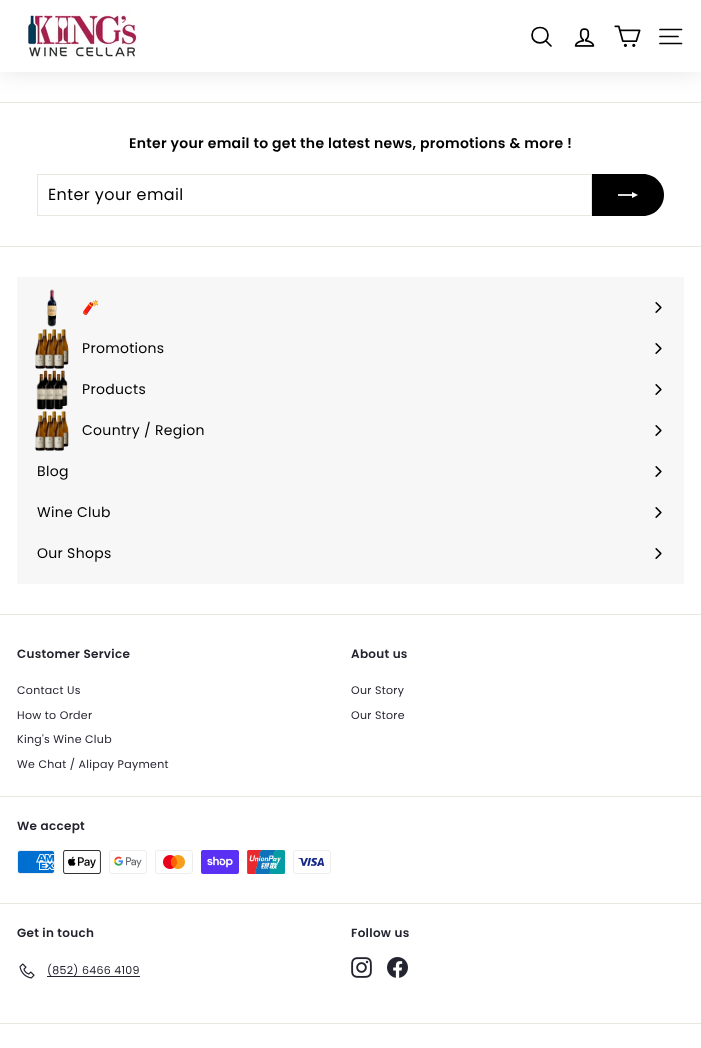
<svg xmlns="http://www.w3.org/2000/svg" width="701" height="1048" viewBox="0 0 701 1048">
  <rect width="100%" height="100%" fill="rgb(255,255,255)"/>
  <rect x="0" y="102" width="701" height="1" fill="rgb(232,232,225)"/>
  <rect x="0" y="0" width="701" height="72" fill="rgba(0,0,0,0.1)" filter="blur(12.5px)"/>
  <rect x="0" y="0" width="701" height="72" fill="rgb(255,255,255)"/>
  <image x="25" y="10" width="113" height="48" href="pic1.png"/>
  <path d="M548 35C548 45.5 532 45.5 532 35C532 25 548 25 548 35ZM551 46L545.5 40.5" fill="none" stroke="rgb(0,0,0)" stroke-width="1.7" stroke-linecap="round" stroke-linejoin="round"/>
  <image x="574" y="28" width="21" height="19" href="pic2.png"/>
  <image x="614" y="25" width="27" height="22" href="pic3.png"/>
  <path d="M660 29.5H681.5M660 36.5H678M660 43.5H681.5" fill="none" stroke="rgb(0,0,0)" stroke-width="1.7" stroke-linecap="round" stroke-linejoin="round"/>
  <text x="129" y="148" font-family="Poppins" font-size="14" font-weight="600" letter-spacing="0.3" fill="rgb(0,0,0)">Enter your email to get the latest news, promotions &amp; more !</text>
  <rect x="37.5" y="174.5" width="554" height="41" fill="none" stroke="rgb(232,232,225)"/>
  <text x="48" y="200" font-family="Poppins" font-size="16" letter-spacing="0.4" fill="rgb(0,0,0)">Enter your email</text>
  <path d="M592 174H643C654.5 174 664 183.5 664 195C664 206.5 654.5 216 643 216H592Z" fill="rgb(0,0,0)"/>
  <image x="618" y="192" width="20" height="6" href="pic4.png"/>
  <rect x="0" y="246" width="701" height="1" fill="rgb(232,232,225)"/>
  <image x="47" y="289" width="10" height="38" href="pic5.png"/>
  <image x="655" y="302" width="7" height="11" href="pic6.png"/>
  <image x="35" y="329" width="34" height="40" href="pic7.png"/>
  <image x="655" y="343" width="7" height="11" href="pic6.png"/>
  <image x="36" y="370" width="32" height="40" href="pic8.png"/>
  <image x="655" y="384" width="7" height="11" href="pic6.png"/>
  <image x="35" y="411" width="34" height="40" href="pic7.png"/>
  <image x="655" y="425" width="7" height="11" href="pic6.png"/>
  <image x="655" y="466" width="7" height="11" href="pic6.png"/>
  <image x="655" y="507" width="7" height="11" href="pic6.png"/>
  <image x="655" y="548" width="7" height="11" href="pic6.png"/>
  <rect x="17" y="277" width="667" height="307" fill="rgba(0,0,0,0.03)"/>
  <text x="82" y="312" font-family="Noto Color Emoji" font-size="14" letter-spacing="0.3" fill="rgb(0,0,0)">🧨</text>
  <g font-family="Poppins" font-size="14" letter-spacing="0.3" fill="rgb(0,0,0)">
    <text x="82" y="353">Promotions</text>
    <text x="82" y="394">Products</text>
    <text x="82" y="435">Country / Region</text>
    <text x="37" y="476">Blog</text>
    <text x="37" y="517">Wine Club</text>
    <text x="37" y="558">Our Shops</text>
  </g>
  <rect x="0" y="614" width="701" height="1" fill="rgb(232,232,225)"/>
  <text x="17" y="658" font-family="Poppins" font-size="12" font-weight="600" letter-spacing="0.3" fill="rgb(36,36,48)">Customer Service</text>
  <g font-family="Poppins" font-size="11" letter-spacing="0.3" fill="rgb(36,36,48)">
    <text x="17" y="694">Contact Us</text>
    <text x="17" y="719">How to Order</text>
    <text x="17" y="743">King's Wine Club</text>
    <text x="17" y="768">We Chat / Alipay Payment</text>
  </g>
  <text x="351" y="658" font-family="Poppins" font-size="12" font-weight="600" letter-spacing="0.3" fill="rgb(36,36,48)">About us</text>
  <g font-family="Poppins" font-size="11" letter-spacing="0.3" fill="rgb(36,36,48)">
    <text x="351" y="694">Our Story</text>
    <text x="351" y="719">Our Store</text>
  </g>
  <rect x="0" y="796" width="701" height="1" fill="rgb(232,232,225)"/>
  <text x="17" y="830" font-family="Poppins" font-size="12" font-weight="600" letter-spacing="0.3" fill="rgb(36,36,48)">We accept</text>
  <image x="17" y="850" width="38" height="24" href="pic9.png"/>
  <image x="63" y="850" width="38" height="24" href="pic10.png"/>
  <image x="109" y="850" width="38" height="24" href="pic11.png"/>
  <image x="155" y="850" width="38" height="24" href="pic12.png"/>
  <image x="201" y="850" width="38" height="24" href="pic13.png"/>
  <image x="247" y="850" width="38" height="24" href="pic14.png"/>
  <image x="293" y="850" width="38" height="24" href="pic15.png"/>
  <rect x="0" y="903" width="701" height="1" fill="rgb(232,232,225)"/>
  <text x="17" y="937" font-family="Poppins" font-size="12" font-weight="600" letter-spacing="0.3" fill="rgb(36,36,48)">Get in touch</text>
  <image x="19" y="963" width="16" height="16" href="pic16.png"/>
  <rect x="47" y="976" width="93" height="1" fill="rgb(36,36,48)"/>
  <text x="47" y="974" font-family="Poppins" font-size="11" letter-spacing="0.3" fill="rgb(36,36,48)">(852) 6466 4109</text>
  <text x="351" y="937" font-family="Poppins" font-size="12" font-weight="600" letter-spacing="0.3" fill="rgb(36,36,48)">Follow us</text>
  <image x="351" y="957" width="21" height="21" href="pic17.png"/>
  <image x="387" y="957" width="21" height="21" href="pic18.png"/>
  <rect x="0" y="1023" width="701" height="1" fill="rgb(232,232,225)"/>
</svg>
